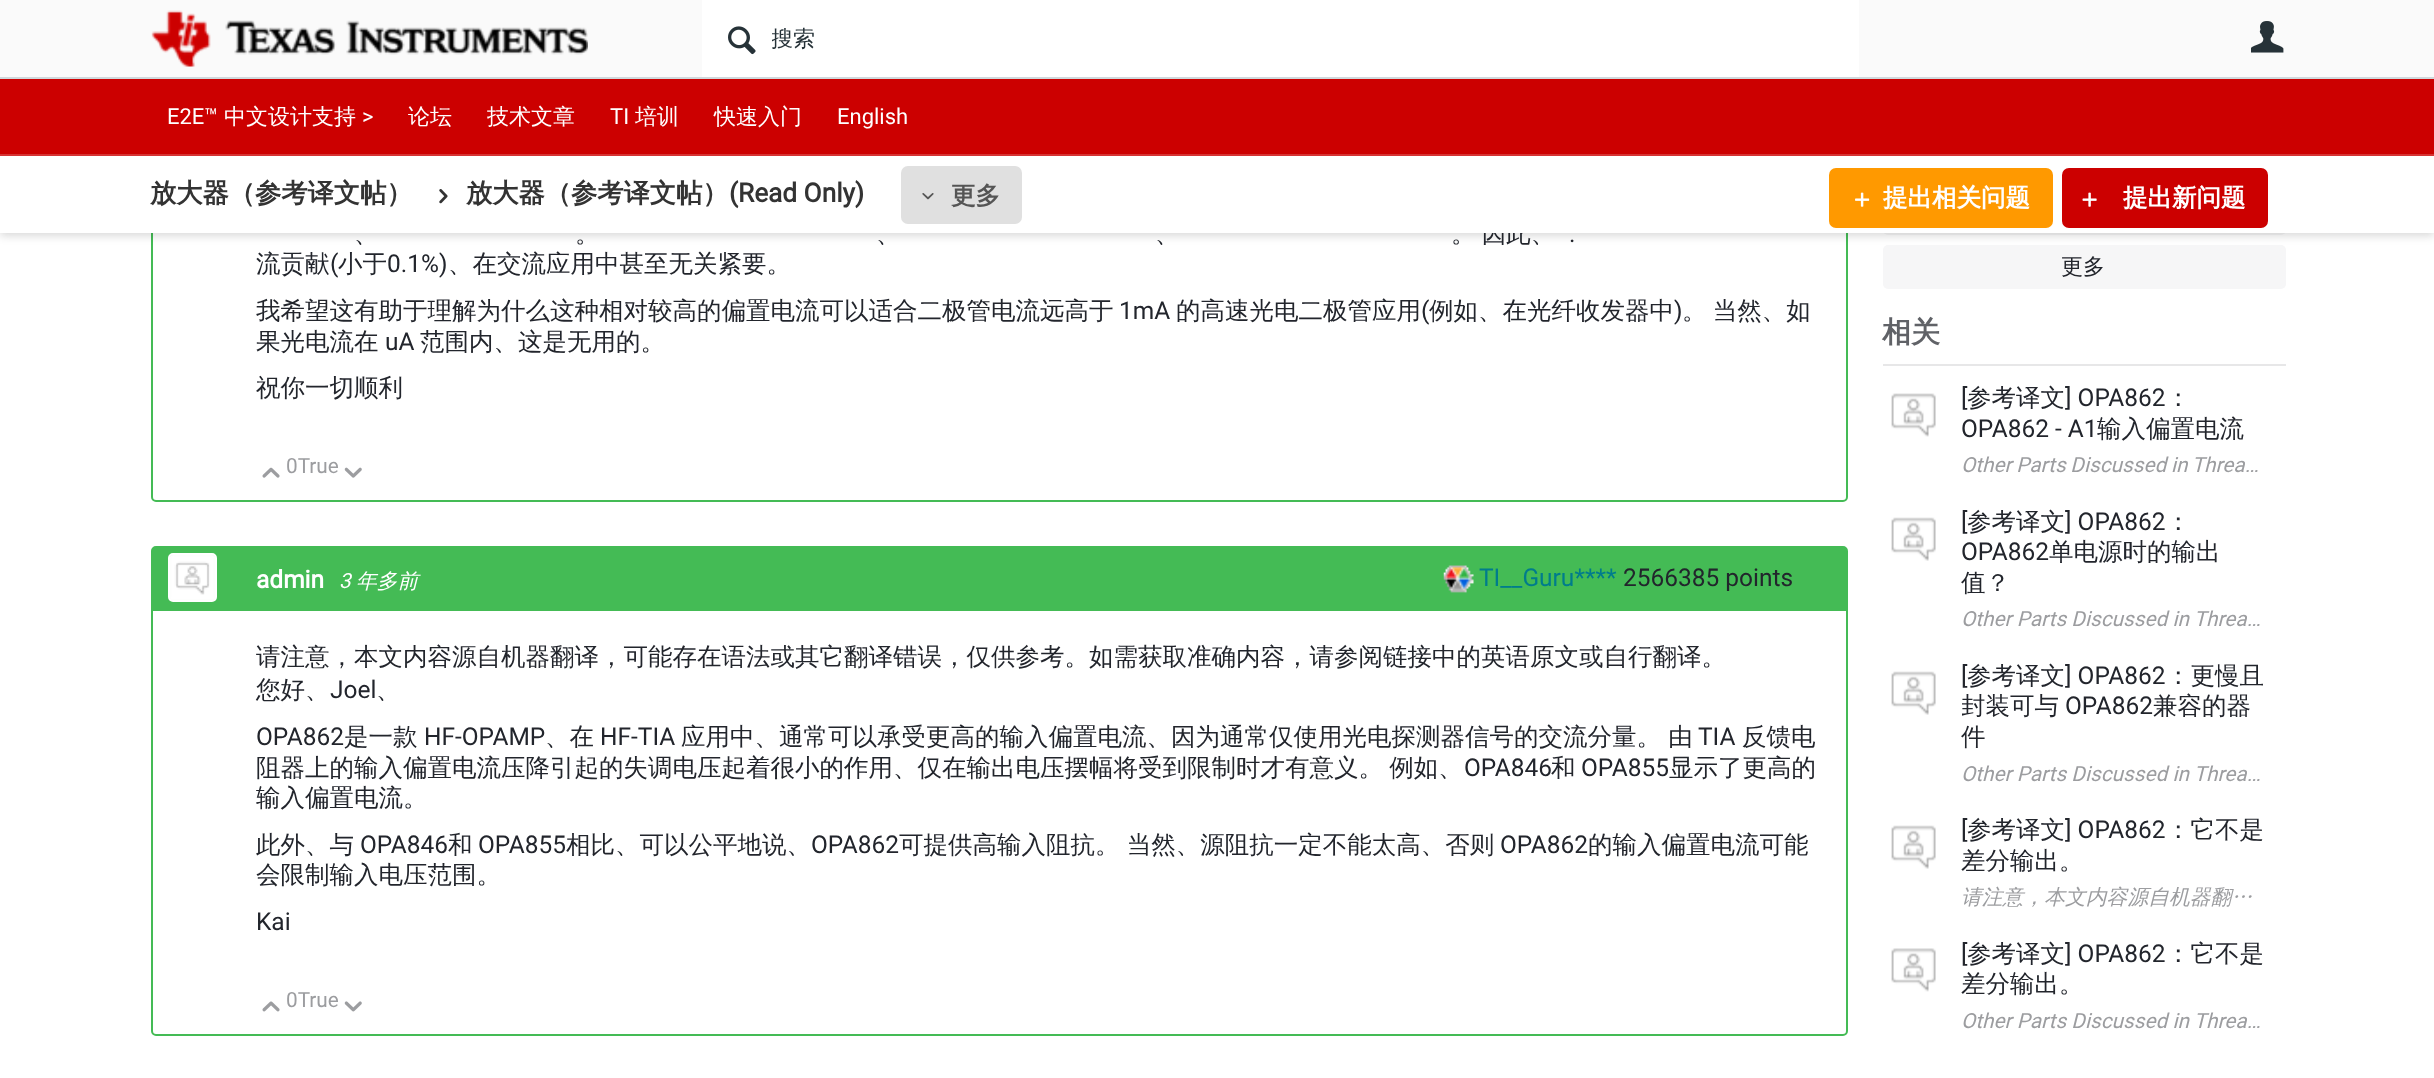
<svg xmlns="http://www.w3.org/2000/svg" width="2434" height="1078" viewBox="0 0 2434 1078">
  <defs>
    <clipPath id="clip1"><rect x="772" y="26" width="1080" height="30"/></clipPath>
    <clipPath id="clip2"><rect x="1962" y="662" width="306" height="91"/></clipPath>
  </defs>
  <rect width="100%" height="100%" fill="rgb(255,255,255)"/>
  <rect x="152" y="43" width="1695" height="458" rx="4" fill="none" stroke="rgb(68,187,85)" stroke-width="2"/>
  <rect x="1883" y="193" width="403" height="42" rx="5" fill="rgb(246,246,247)"/>
  <rect x="1883" y="245" width="403" height="44" rx="5" fill="rgb(246,246,247)"/>
  <rect x="0" y="4" width="2434" height="232" fill="rgba(0,0,0,0.15)" filter="blur(4.5px)"/>
  <text x="1451" y="242" word-spacing="-1" font-family="WenQuanYi Zen Hei" font-size="24.5" font-weight="500" fill="rgb(34,37,44)">。 因此、</text>
  <rect x="0" y="156" width="2434" height="77" fill="rgb(255,255,255)"/>
  <rect x="0" y="0" width="2434" height="77" fill="rgb(250,250,250)"/>
  <rect x="0" y="77" width="2434" height="2" fill="rgb(207,216,220)"/>
  <image x="151" y="10" width="437" height="57" href="pic1.png"/>
  <rect x="702" y="0" width="1157" height="77" fill="rgb(255,255,255)"/>
  <image x="728" y="26" width="28" height="29" href="pic2.png"/>
  <g clip-path="url(#clip1)">
    <text x="771" y="46" font-family="WenQuanYi Zen Hei" font-size="22" font-weight="500" fill="rgb(38,50,56)">搜索</text>
  </g>
  <image x="2251" y="21" width="33" height="32" href="pic3.png"/>
  <rect x="0" y="79" width="2434" height="75" fill="rgb(204,0,0)"/>
  <rect x="0" y="154" width="2434" height="2" fill="rgb(214,51,51)"/>
  <text x="167" y="124" font-family="Roboto" font-size="22" fill="rgb(255,255,255)">E2E™</text>
  <text x="224" y="124" font-family="WenQuanYi Zen Hei" font-size="22" font-weight="500" fill="rgb(255,255,255)">中文设计支持</text>
  <text x="362" y="124" font-family="Roboto" font-size="22" fill="rgb(255,255,255)">&gt;</text>
  <g font-family="WenQuanYi Zen Hei" font-size="22" font-weight="500" fill="rgb(255,255,255)">
    <text x="408" y="124">论坛</text>
    <text x="487" y="124">技术文章</text>
  </g>
  <text x="610" y="124" font-family="Roboto" font-size="22" fill="rgb(255,255,255)">TI</text>
  <g font-family="WenQuanYi Zen Hei" font-size="22" font-weight="500" fill="rgb(255,255,255)">
    <text x="635" y="124">培训</text>
    <text x="714" y="124">快速入门</text>
  </g>
  <text x="837" y="124" font-family="Roboto" font-size="22" fill="rgb(255,255,255)">English</text>
  <text x="150" y="202" font-family="WenQuanYi Zen Hei" font-size="26.25" font-weight="bold" fill="rgb(51,51,51)">放大器（参考译文帖）</text>
  <image x="439" y="189" width="9" height="15" href="pic4.png"/>
  <text x="466" y="202" font-family="WenQuanYi Zen Hei" font-size="26.25" font-weight="bold" fill="rgb(51,51,51)">放大器（参考译文帖）</text>
  <text x="729" y="202" font-family="Roboto" font-size="26.25" font-weight="bold" fill="rgb(51,51,51)">(Read Only)</text>
  <rect x="901" y="166" width="121" height="58" rx="7" fill="rgb(224,224,224)"/>
  <image x="922" y="193" width="12" height="7" href="pic5.png"/>
  <text x="951" y="204" font-family="WenQuanYi Zen Hei" font-size="24.5" font-weight="bold" fill="rgb(85,85,85)">更多</text>
  <rect x="1829" y="168" width="224" height="60" rx="7" fill="rgb(255,153,0)"/>
  <image x="1855" y="192" width="15" height="15" href="pic6.png"/>
  <text x="1883" y="206" font-family="WenQuanYi Zen Hei" font-size="24.5" font-weight="bold" fill="rgb(255,255,255)">提出相关问题</text>
  <rect x="2062" y="168" width="206" height="60" rx="7" fill="rgb(204,0,0)"/>
  <image x="2082" y="192" width="15" height="15" href="pic7.png"/>
  <text x="2123" y="206" font-family="WenQuanYi Zen Hei" font-size="24.5" font-weight="bold" fill="rgb(255,255,255)">提出新问题</text>
  <g font-family="WenQuanYi Zen Hei" font-size="24.5" font-weight="500" fill="rgb(34,37,44)">
    <text x="354" y="242" word-spacing="-1">、</text>
    <text x="575" y="242" word-spacing="-1">。</text>
    <text x="876" y="242" word-spacing="-1">、</text>
    <text x="1155" y="242">、</text>
  </g>
  <text x="1569" y="242" font-family="Roboto" font-size="24.5" fill="rgb(34,37,44)">.</text>
  <text x="256" y="272" font-family="WenQuanYi Zen Hei" font-size="24.5" font-weight="500" fill="rgb(34,37,44)">流贡献</text>
  <text x="330" y="272" font-family="Roboto" font-size="24.5" fill="rgb(34,37,44)">(</text>
  <text x="338" y="272" font-family="WenQuanYi Zen Hei" font-size="24.5" font-weight="500" fill="rgb(34,37,44)">小于</text>
  <text x="387" y="272" font-family="Roboto" font-size="24.5" fill="rgb(34,37,44)">0.1%)</text>
  <g font-family="WenQuanYi Zen Hei" font-size="24.5" font-weight="500" fill="rgb(34,37,44)">
    <text x="448" y="272">、在交流应用中甚至无关紧要。</text>
    <text x="256" y="319">我希望这有助于理解为什么这种相对较高的偏置电流可以适合二极管电流远高于</text>
  </g>
  <text x="1119" y="319" font-family="Roboto" font-size="24.5" fill="rgb(34,37,44)">1mA</text>
  <text x="1176" y="319" font-family="WenQuanYi Zen Hei" font-size="24.5" font-weight="500" fill="rgb(34,37,44)">的高速光电二极管应用</text>
  <text x="1421" y="319" font-family="Roboto" font-size="24.5" fill="rgb(34,37,44)">(</text>
  <text x="1429" y="319" font-family="WenQuanYi Zen Hei" font-size="24.5" font-weight="500" fill="rgb(34,37,44)">例如、在光纤收发器中</text>
  <text x="1674" y="319" font-family="Roboto" font-size="24.5" fill="rgb(34,37,44)">)</text>
  <g font-family="WenQuanYi Zen Hei" font-size="24.5" font-weight="500" fill="rgb(34,37,44)">
    <text x="1682" y="319" word-spacing="-1">。 当然、如</text>
    <text x="256" y="350">果光电流在</text>
  </g>
  <text x="385" y="350" font-family="Roboto" font-size="24.5" fill="rgb(34,37,44)">uA</text>
  <g font-family="WenQuanYi Zen Hei" font-size="24.5" font-weight="500" fill="rgb(34,37,44)">
    <text x="420" y="350">范围内、这是无用的。</text>
    <text x="256" y="396">祝你一切顺利</text>
  </g>
  <image x="262" y="467" width="18" height="11" href="pic8.png"/>
  <text x="286" y="473" font-family="Roboto" font-size="20.8" fill="rgb(156,157,160)">0True</text>
  <image x="344" y="467" width="18" height="11" href="pic9.png"/>
  <rect x="152" y="547" width="1695" height="488" rx="4" fill="none" stroke="rgb(68,187,85)" stroke-width="2"/>
  <rect x="153" y="548" width="1693" height="63" fill="rgb(68,187,85)"/>
  <image x="169" y="555" width="47" height="46" href="pic10.png"/>
  <rect x="169" y="554" width="47" height="47" rx="4" fill="none" stroke="rgb(255,255,255)" stroke-width="2"/>
  <text x="256" y="588" font-family="Roboto" font-size="24.5" font-weight="bold" fill="rgb(255,255,255)">admin</text>
  <text x="339" y="588" font-family="Roboto" font-size="20.8" font-style="italic" fill="rgb(255,255,255)">3</text>
  <text x="356" y="588" font-family="WenQuanYi Zen Hei" font-size="20.8" font-weight="500" font-style="italic" fill="rgb(255,255,255)">年多前</text>
  <image x="1443" y="565" width="31" height="28" href="pic11.png"/>
  <text x="1479" y="586" font-family="Roboto" font-size="24.5" fill="rgb(0,124,140)">TI__Guru****</text>
  <text x="1623" y="586" font-family="Roboto" font-size="24.5" fill="rgb(34,37,44)">2566385 points</text>
  <g font-family="WenQuanYi Zen Hei" font-size="24.5" font-weight="500" fill="rgb(34,37,44)">
    <text>
      <tspan x="256" y="665">请注意，本文内容源自机器翻译，可能存在语法或其它翻译错误，仅供参考。如需获取准确内容，请参阅链接中的英语原文或自行翻译。</tspan>
      <tspan x="256" y="698">您好、</tspan>
    </text>
  </g>
  <text x="330" y="698" font-family="Roboto" font-size="24.5" fill="rgb(34,37,44)">Joel</text>
  <text x="376" y="698" font-family="WenQuanYi Zen Hei" font-size="24.5" font-weight="500" fill="rgb(34,37,44)">、</text>
  <text x="256" y="745" font-family="Roboto" font-size="24.5" fill="rgb(34,37,44)">OPA862</text>
  <text x="344" y="745" font-family="WenQuanYi Zen Hei" font-size="24.5" font-weight="500" fill="rgb(34,37,44)">是一款</text>
  <text x="424" y="745" font-family="Roboto" font-size="24.5" fill="rgb(34,37,44)">HF-OPAMP</text>
  <text x="545" y="745" font-family="WenQuanYi Zen Hei" font-size="24.5" font-weight="500" fill="rgb(34,37,44)">、在</text>
  <text x="600" y="745" font-family="Roboto" font-size="24.5" fill="rgb(34,37,44)">HF-TIA</text>
  <text x="681" y="745" font-family="WenQuanYi Zen Hei" font-size="24.5" font-weight="500" fill="rgb(34,37,44)">应用中、通常可以承受更高的输入偏置电流、因为通常仅使用光电探测器信号的交流分量。 由</text>
  <text x="1698" y="745" font-family="Roboto" font-size="24.5" fill="rgb(34,37,44)">TIA</text>
  <g font-family="WenQuanYi Zen Hei" font-size="24.5" font-weight="500" fill="rgb(34,37,44)">
    <text x="1742" y="745">反馈电</text>
    <text x="256" y="776" word-spacing="-1">阻器上的输入偏置电流压降引起的失调电压起着很小的作用、仅在输出电压摆幅将受到限制时才有意义。 例如、</text>
  </g>
  <text x="1464" y="776" font-family="Roboto" font-size="24.5" fill="rgb(34,37,44)">OPA846</text>
  <text x="1551" y="776" font-family="WenQuanYi Zen Hei" font-size="24.5" font-weight="500" fill="rgb(34,37,44)">和</text>
  <text x="1581" y="776" font-family="Roboto" font-size="24.5" fill="rgb(34,37,44)">OPA855</text>
  <g font-family="WenQuanYi Zen Hei" font-size="24.5" font-weight="500" fill="rgb(34,37,44)">
    <text x="1669" y="776">显示了更高的</text>
    <text>
      <tspan x="256" y="806">输入偏置电流。</tspan>
      <tspan x="256" y="853">此外、与</tspan>
    </text>
  </g>
  <text x="360" y="853" font-family="Roboto" font-size="24.5" fill="rgb(34,37,44)">OPA846</text>
  <text x="448" y="853" font-family="WenQuanYi Zen Hei" font-size="24.5" font-weight="500" fill="rgb(34,37,44)">和</text>
  <text x="478" y="853" font-family="Roboto" font-size="24.5" fill="rgb(34,37,44)">OPA855</text>
  <text x="566" y="853" font-family="WenQuanYi Zen Hei" font-size="24.5" font-weight="500" fill="rgb(34,37,44)">相比、可以公平地说、</text>
  <text x="811" y="853" font-family="Roboto" font-size="24.5" fill="rgb(34,37,44)">OPA862</text>
  <text x="899" y="853" font-family="WenQuanYi Zen Hei" font-size="24.5" font-weight="500" fill="rgb(34,37,44)">可提供高输入阻抗。 当然、源阻抗一定不能太高、否则</text>
  <text x="1500" y="853" font-family="Roboto" font-size="24.5" fill="rgb(34,37,44)">OPA862</text>
  <g font-family="WenQuanYi Zen Hei" font-size="24.5" font-weight="500" fill="rgb(34,37,44)">
    <text x="1588" y="853">的输入偏置电流可能</text>
    <text x="256" y="883">会限制输入电压范围。</text>
  </g>
  <text x="256" y="930" font-family="Roboto" font-size="24.5" fill="rgb(34,37,44)">Kai</text>
  <image x="262" y="1001" width="18" height="11" href="pic12.png"/>
  <text x="286" y="1007" font-family="Roboto" font-size="20.8" fill="rgb(156,157,160)">0True</text>
  <image x="344" y="1001" width="18" height="11" href="pic13.png"/>
  <text x="2061" y="274" font-family="WenQuanYi Zen Hei" font-size="22" font-weight="500" fill="rgb(34,37,44)">更多</text>
  <rect x="1883" y="364" width="403" height="2" fill="rgb(231,231,232)"/>
  <text x="1882" y="342" font-family="WenQuanYi Zen Hei" font-size="29" font-weight="bold" fill="rgb(96,98,103)">相关</text>
  <text x="1961" y="406" font-family="Roboto" font-size="24.5" fill="rgb(34,37,44)">[</text>
  <text x="1967" y="406" font-family="WenQuanYi Zen Hei" font-size="24.5" font-weight="500" fill="rgb(34,37,44)">参考译文</text>
  <text x="2065" y="406" font-family="Roboto" font-size="24.5" fill="rgb(34,37,44)">] OPA862</text>
  <text x="2166" y="406" font-family="WenQuanYi Zen Hei" font-size="24.5" font-weight="500" fill="rgb(34,37,44)">：</text>
  <text x="1961" y="437" font-family="Roboto" font-size="24.5" fill="rgb(34,37,44)">OPA862 - A1</text>
  <text x="2097" y="437" font-family="WenQuanYi Zen Hei" font-size="24.5" font-weight="500" fill="rgb(34,37,44)">输入偏置电流</text>
  <image x="1891" y="393" width="45" height="44" href="pic14.png"/>
  <text x="1961" y="472" word-spacing="-0.5" font-family="Roboto" font-size="20.8" font-style="italic" fill="rgb(156,157,160)">Other Parts Discussed in Threa…</text>
  <text x="1961" y="530" font-family="Roboto" font-size="24.5" fill="rgb(34,37,44)">[</text>
  <text x="1967" y="530" font-family="WenQuanYi Zen Hei" font-size="24.5" font-weight="500" fill="rgb(34,37,44)">参考译文</text>
  <text x="2065" y="530" font-family="Roboto" font-size="24.5" fill="rgb(34,37,44)">] OPA862</text>
  <text x="2166" y="530" font-family="WenQuanYi Zen Hei" font-size="24.5" font-weight="500" fill="rgb(34,37,44)">：</text>
  <text x="1961" y="560" font-family="Roboto" font-size="24.5" fill="rgb(34,37,44)">OPA862</text>
  <g font-family="WenQuanYi Zen Hei" font-size="24.5" font-weight="500" fill="rgb(34,37,44)">
    <text x="2049" y="560">单电源时的输出</text>
    <text x="1961" y="591">值？</text>
  </g>
  <image x="1891" y="517" width="45" height="44" href="pic15.png"/>
  <text x="1961" y="626" font-family="Roboto" font-size="20.8" font-style="italic" fill="rgb(156,157,160)">Other Parts Discussed in Threa…</text>
  <text x="1961" y="684" font-family="Roboto" font-size="24.5" fill="rgb(34,37,44)">[</text>
  <text x="1967" y="684" font-family="WenQuanYi Zen Hei" font-size="24.5" font-weight="500" fill="rgb(34,37,44)">参考译文</text>
  <text x="2065" y="684" font-family="Roboto" font-size="24.5" fill="rgb(34,37,44)">] OPA862</text>
  <text x="2166" y="684" font-family="WenQuanYi Zen Hei" font-size="24.5" font-weight="500" fill="rgb(34,37,44)">：更慢且</text>
  <g clip-path="url(#clip2)">
    <text x="1961" y="714" font-family="WenQuanYi Zen Hei" font-size="24.5" font-weight="500" fill="rgb(34,37,44)">封装可与</text>
  </g>
  <text x="2065" y="714" font-family="Roboto" font-size="24.5" fill="rgb(34,37,44)">OPA862</text>
  <g font-family="WenQuanYi Zen Hei" font-size="24.5" font-weight="500" fill="rgb(34,37,44)">
    <text x="2153" y="714">兼容的器</text>
    <text x="1961" y="745">件</text>
  </g>
  <image x="1891" y="671" width="45" height="44" href="pic15.png"/>
  <text x="1961" y="781" font-family="Roboto" font-size="20.8" font-style="italic" fill="rgb(156,157,160)">Other Parts Discussed in Threa…</text>
  <text x="1961" y="838" font-family="Roboto" font-size="24.5" fill="rgb(34,37,44)">[</text>
  <text x="1967" y="838" font-family="WenQuanYi Zen Hei" font-size="24.5" font-weight="500" fill="rgb(34,37,44)">参考译文</text>
  <text x="2065" y="838" font-family="Roboto" font-size="24.5" fill="rgb(34,37,44)">] OPA862</text>
  <g font-family="WenQuanYi Zen Hei" font-size="24.5" font-weight="500" fill="rgb(34,37,44)">
    <text x="2166" y="838">：它不是</text>
    <text x="1961" y="869">差分输出。</text>
  </g>
  <image x="1891" y="825" width="45" height="44" href="pic16.png"/>
  <text x="1961" y="904" font-family="WenQuanYi Zen Hei" font-size="20.8" font-weight="500" font-style="italic" fill="rgb(156,157,160)">请注意，本文内容源自机器翻…</text>
  <text x="1961" y="962" font-family="Roboto" font-size="24.5" fill="rgb(34,37,44)">[</text>
  <text x="1967" y="962" font-family="WenQuanYi Zen Hei" font-size="24.5" font-weight="500" fill="rgb(34,37,44)">参考译文</text>
  <text x="2065" y="962" font-family="Roboto" font-size="24.5" fill="rgb(34,37,44)">] OPA862</text>
  <g font-family="WenQuanYi Zen Hei" font-size="24.5" font-weight="500" fill="rgb(34,37,44)">
    <text x="2166" y="962">：它不是</text>
    <text x="1961" y="992">差分输出。</text>
  </g>
  <image x="1891" y="948" width="45" height="44" href="pic17.png"/>
  <text x="1961" y="1028" font-family="Roboto" font-size="20.8" font-style="italic" fill="rgb(156,157,160)">Other Parts Discussed in Threa…</text>
</svg>
